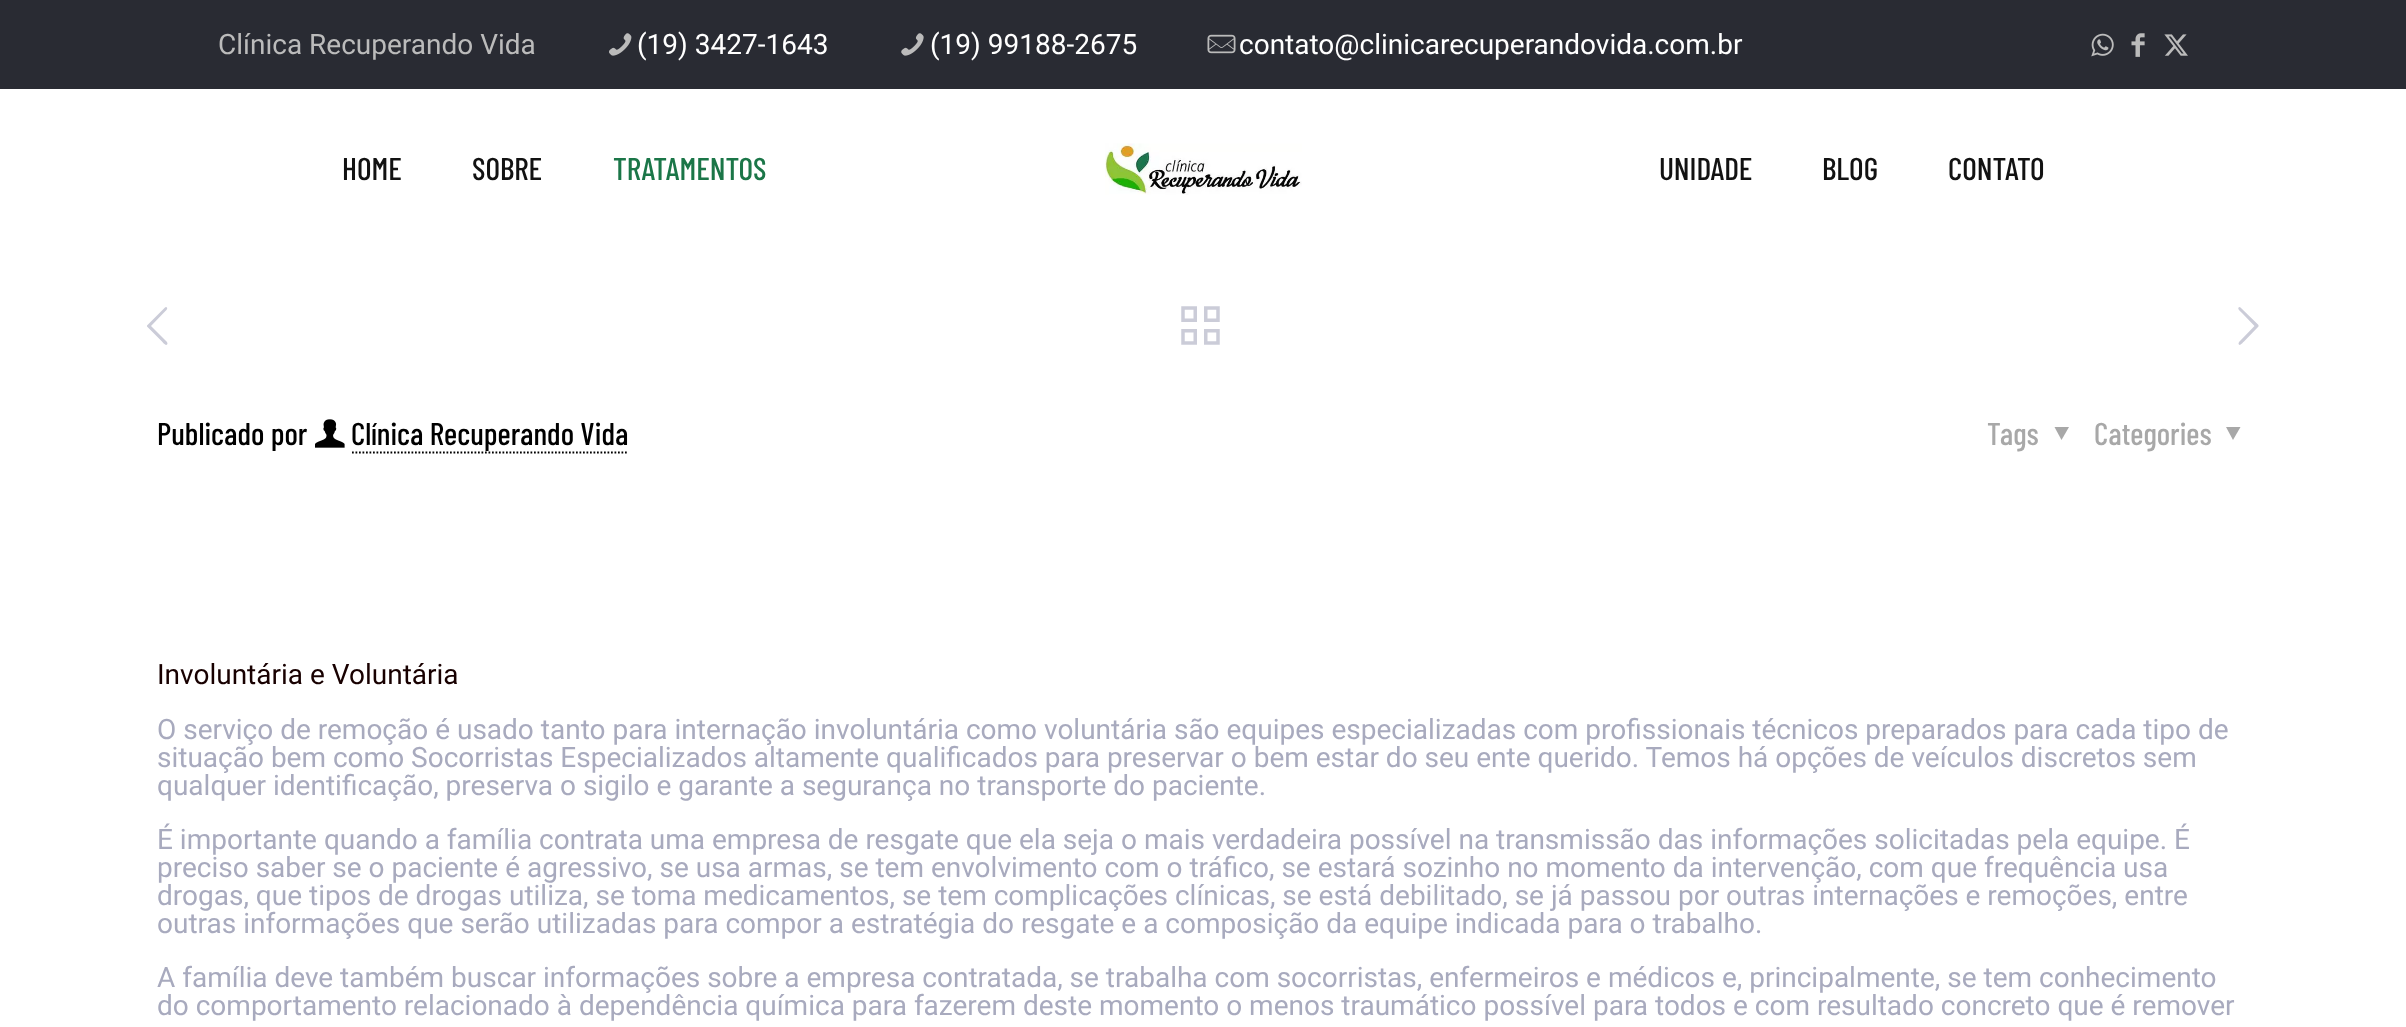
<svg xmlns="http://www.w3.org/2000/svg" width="2406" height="1027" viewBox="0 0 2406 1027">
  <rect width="100%" height="100%" fill="rgb(255,255,255)"/>
  <rect x="0" y="0" width="2406" height="89" fill="rgb(41,43,51)"/>
  <text x="218" y="54" font-family="Roboto" font-size="28" fill="rgb(187,187,187)">Clínica Recuperando Vida</text>
  <image x="609" y="33" width="23" height="23" href="pic1.png"/>
  <text x="637" y="54" font-family="Roboto" font-size="28" fill="rgb(255,255,255)">(19) 3427-1643</text>
  <image x="901" y="33" width="23" height="23" href="pic2.png"/>
  <text x="930" y="54" font-family="Roboto" font-size="28" fill="rgb(255,255,255)">(19) 99188-2675</text>
  <image x="1207" y="34" width="29" height="20" href="pic3.png"/>
  <text x="1239" y="54" font-family="Roboto" font-size="28" fill="rgb(255,255,255)">contato@clinicarecuperandovida.com.br</text>
  <image x="2091" y="33" width="23" height="24" href="pic4.png"/>
  <image x="2131" y="33" width="14" height="24" href="pic5.png"/>
  <image x="2164" y="34" width="24" height="22" href="pic6.png"/>
  <image x="1105" y="143" width="197" height="52" href="pic7.png"/>
  <g font-family="Barlow Condensed" font-size="31.5" font-weight="500" fill="rgb(18,18,18)">
    <text x="342" y="180">HOME</text>
    <text x="472" y="180">SOBRE</text>
  </g>
  <text x="613" y="180" font-family="Barlow Condensed" font-size="31.5" font-weight="500" fill="rgb(27,118,72)">TRATAMENTOS</text>
  <g font-family="Barlow Condensed" font-size="31.5" font-weight="500" fill="rgb(18,18,18)">
    <text x="1659" y="180">UNIDADE</text>
    <text x="1822" y="180">BLOG</text>
    <text x="1948" y="180">CONTATO</text>
  </g>
  <path d="M167 342L167.5 343.5C166.5 347.5 162 341.5 162 341.5L147 326.5V325.5L147.5 325L165 307.5L166 307C169.5 308 164.5 312 164 312.5L151 326Z" fill="rgb(203,204,216)"/>
  <image x="1181" y="306" width="39" height="39" href="pic8.png"/>
  <path d="M2239 342L2254.5 326L2241.5 312.5C2241 312 2236 308 2239.5 307L2240.5 307.5L2258.5 325V325.5V326.5L2244 341.5C2243.5 341.5 2239.5 347.5 2238.5 343.5Z" fill="rgb(203,204,216)"/>
  <text x="157" y="445" font-family="Barlow Condensed" font-size="31.5" font-weight="500" fill="rgb(0,0,0)">Publicado por</text>
  <image x="315" y="419" width="30" height="29" href="pic9.png"/>
  <text x="351" y="445" font-family="Barlow Condensed" font-size="31.5" font-weight="500" fill="rgb(0,0,0)">Clínica Recuperando Vida</text>
  <path d="M352 452.5H628" fill="none" stroke="rgb(0,0,0)" stroke-width="1.8" stroke-dasharray="1.75 1.75"/>
  <text x="1987" y="445" font-family="Barlow Condensed" font-size="31.5" font-weight="500" fill="rgb(168,168,168)">Tags</text>
  <path d="M2069 427L2061.5 440L2054.5 427Z" fill="rgb(168,168,168)"/>
  <text x="2094" y="445" font-family="Barlow Condensed" font-size="31.5" font-weight="500" fill="rgb(168,168,168)">Categories</text>
  <path d="M2240.5 427L2233 440L2226 427Z" fill="rgb(168,168,168)"/>
  <text x="157" y="684" font-family="Roboto" font-size="28" fill="rgb(24,0,0)">Involuntária e Voluntária</text>
  <g font-family="Roboto" font-size="28" fill="rgb(168,170,190)">
    <text>
      <tspan x="157" y="739">O serviço de remoção é usado tanto para internação involuntária como voluntária são equipes especializadas com profissionais técnicos preparados para cada tipo de</tspan>
      <tspan x="157" y="767">situação bem como Socorristas Especializados altamente qualificados para preservar o bem estar do seu ente querido. Temos há opções de veículos discretos sem</tspan>
      <tspan x="157" y="795">qualquer identificação, preserva o sigilo e garante a segurança no transporte do paciente.</tspan>
      <tspan x="157" y="849">É importante quando a família contrata uma empresa de resgate que ela seja o mais verdadeira possível na transmissão das informações solicitadas pela equipe. É</tspan>
      <tspan x="157" y="877">preciso saber se o paciente é agressivo, se usa armas, se tem envolvimento com o tráfico, se estará sozinho no momento da intervenção, com que frequência usa</tspan>
      <tspan x="157" y="905">drogas, que tipos de drogas utiliza, se toma medicamentos, se tem complicações clínicas, se está debilitado, se já passou por outras internações e remoções, entre</tspan>
      <tspan x="157" y="933">outras informações que serão utilizadas para compor a estratégia do resgate e a composição da equipe indicada para o trabalho.</tspan>
      <tspan x="157" y="987">A família deve também buscar informações sobre a empresa contratada, se trabalha com socorristas, enfermeiros e médicos e, principalmente, se tem conhecimento</tspan>
      <tspan x="157" y="1015">do comportamento relacionado à dependência química para fazerem deste momento o menos traumático possível para todos e com resultado concreto que é remover</tspan>
    </text>
  </g>
</svg>
